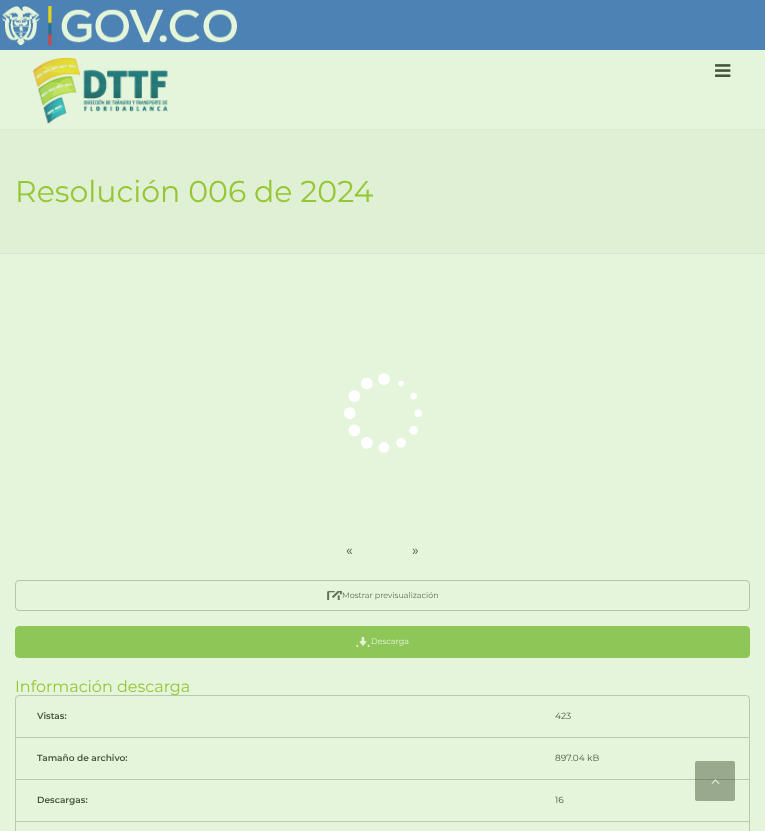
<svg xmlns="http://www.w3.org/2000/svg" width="765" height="831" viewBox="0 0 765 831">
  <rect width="100%" height="100%" fill="rgb(229,245,219)"/>
  <rect x="0" y="0" width="765" height="50" fill="rgb(76,130,180)"/>
  <image x="2" y="6" width="235" height="39" href="pic1.png"/>
  <rect x="0" y="129" width="765" height="1" fill="rgb(220,235,209)"/>
  <image x="33" y="58" width="135" height="66" href="pic2.png"/>
  <image x="715" y="64" width="16" height="13" href="pic3.png"/>
  <rect x="0" y="130" width="765" height="123" fill="rgb(224,240,213)"/>
  <text x="15" y="202" font-family="Montserrat" font-size="30" fill="rgb(149,198,51)">Resolución 006 de 2024</text>
  <rect x="0" y="253" width="765" height="1" fill="rgb(214,230,204)"/>
  <g font-family="Montserrat" font-size="14" fill="rgb(70,86,60)">
    <text x="346" y="555">«</text>
    <text x="412" y="555">»</text>
  </g>
  <rect x="15.5" y="580.5" width="734" height="30" rx="3.5" fill="none" stroke="rgb(180,195,169)"/>
  <image x="327" y="591" width="15" height="9" href="pic4.png"/>
  <text x="342" y="598" font-family="Montserrat" font-size="8" fill="rgb(97,113,87)">Mostrar previsualización</text>
  <rect x="15.5" y="626.5" width="734" height="31" rx="3.5" fill="rgb(143,198,88)" stroke="rgb(143,198,88)"/>
  <image x="356" y="637" width="14" height="10" href="pic5.png"/>
  <text x="371" y="644" font-family="Montserrat" font-size="8" fill="rgb(229,245,219)">Descarga</text>
  <rect x="15.5" y="695.5" width="734" height="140" rx="3.5" fill="none" stroke="rgb(185,201,174)"/>
  <text x="15" y="692" font-family="Montserrat" font-size="16" fill="rgb(149,198,51)">Información descarga</text>
  <rect x="16" y="737" width="733" height="1" fill="rgb(185,201,174)"/>
  <text x="37" y="719" font-family="Montserrat" font-size="9" font-weight="600" fill="rgb(70,86,60)">Vistas:</text>
  <text x="555" y="719" font-family="Montserrat" font-size="9" fill="rgb(70,86,60)">423</text>
  <rect x="16" y="779" width="733" height="1" fill="rgb(185,201,174)"/>
  <text x="37" y="761" font-family="Montserrat" font-size="9" font-weight="600" fill="rgb(70,86,60)">Tamaño de archivo:</text>
  <text x="555" y="761" font-family="Montserrat" font-size="9" fill="rgb(70,86,60)">897.04 kB</text>
  <rect x="16" y="821" width="733" height="1" fill="rgb(185,201,174)"/>
  <text x="37" y="803" font-family="Montserrat" font-size="9" font-weight="600" fill="rgb(70,86,60)">Descargas:</text>
  <text x="555" y="803" font-family="Montserrat" font-size="9" fill="rgb(70,86,60)">16</text>
  <image x="344" y="373" width="78" height="80" href="pic6.png"/>
  <rect x="695" y="761" width="40" height="40" rx="2" fill="rgba(38,54,27,0.4)"/>
  <image x="711" y="779" width="9" height="5" href="pic7.png"/>
</svg>
